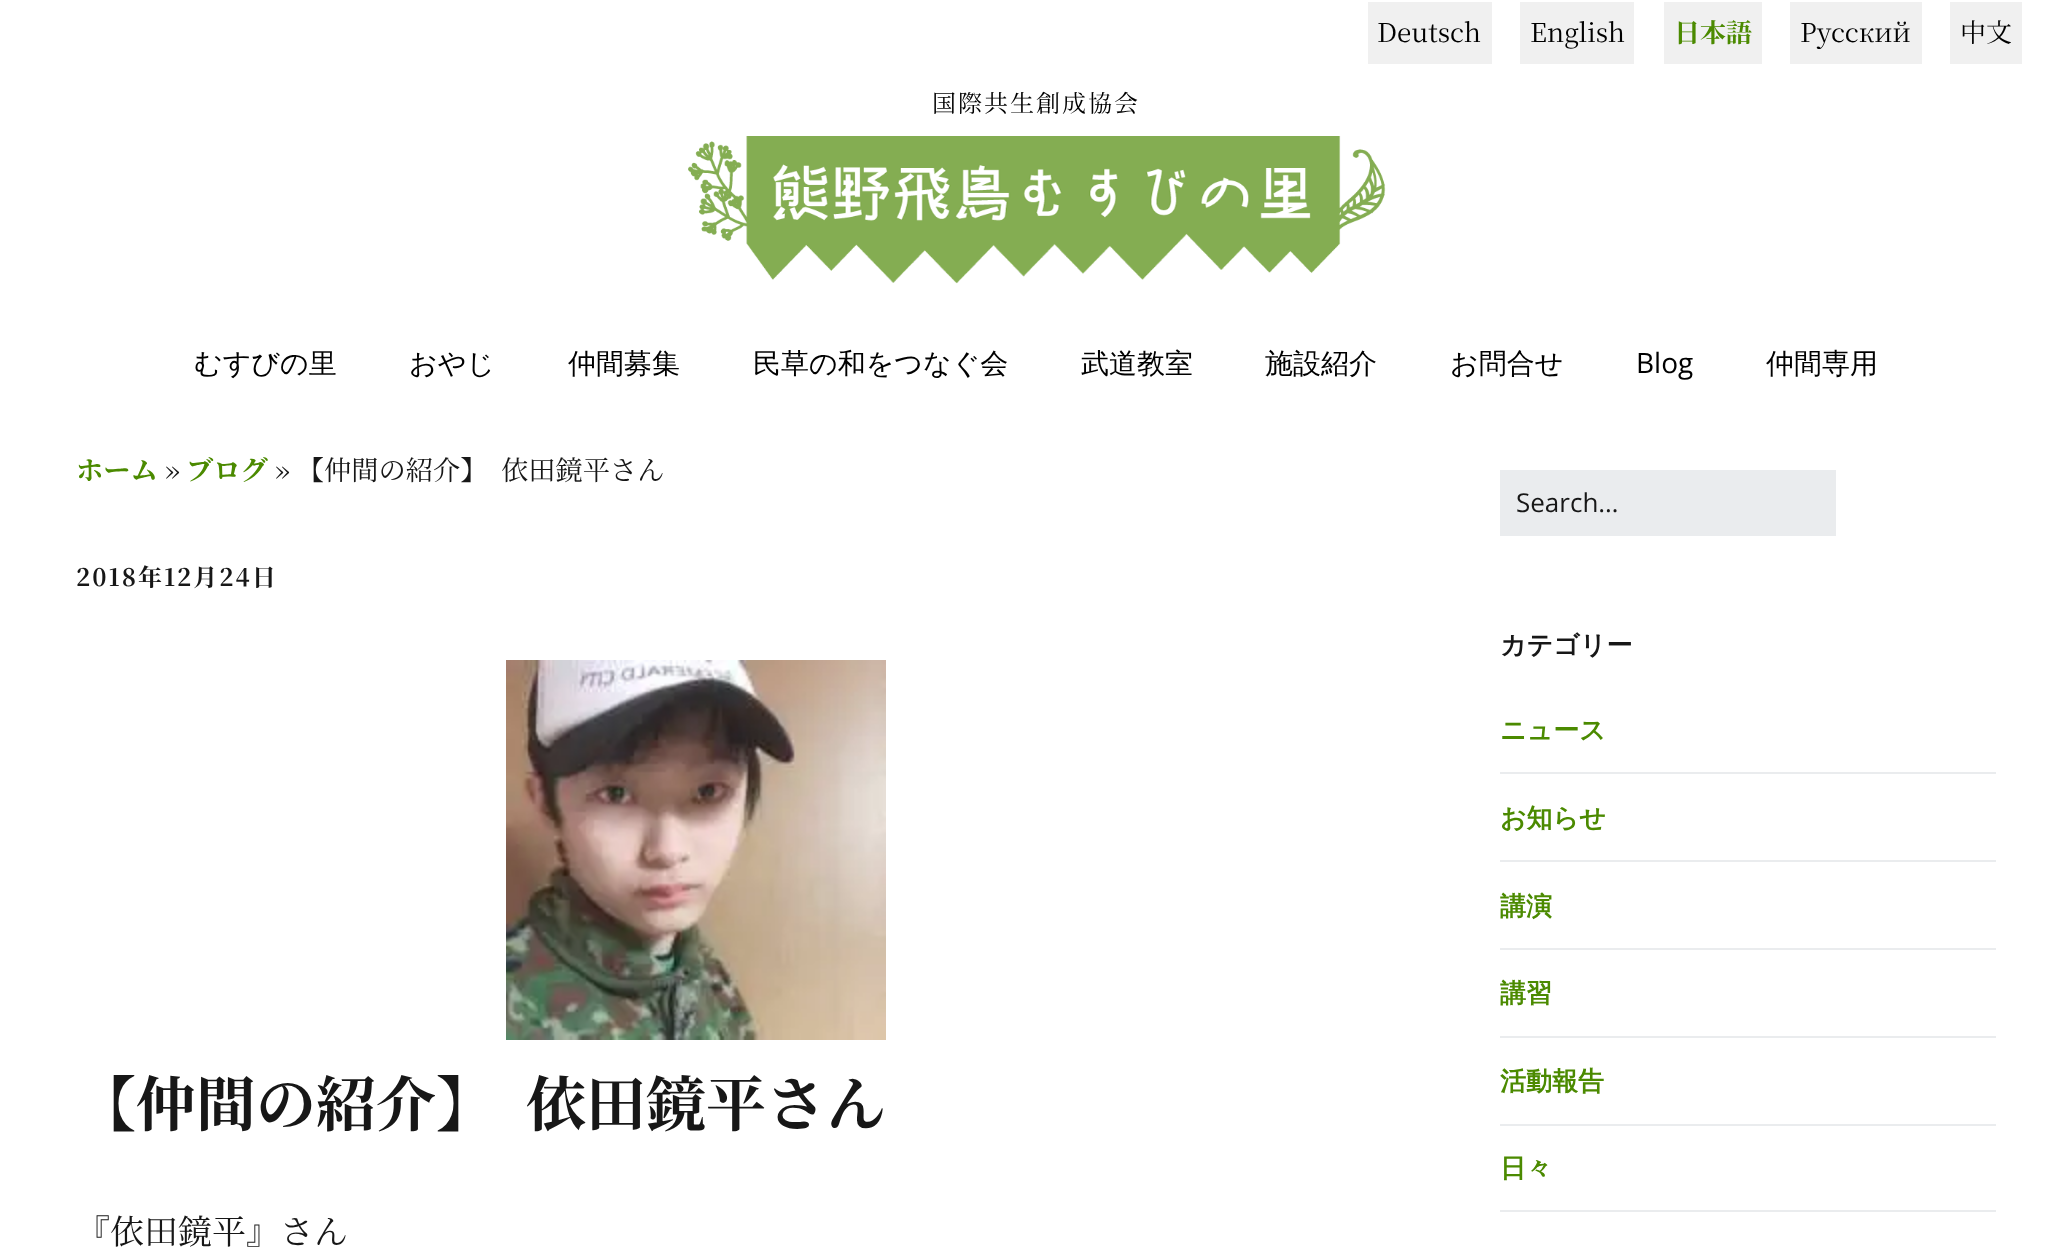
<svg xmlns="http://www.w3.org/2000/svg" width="2072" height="1247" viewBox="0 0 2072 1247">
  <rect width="100%" height="100%" fill="rgb(255,255,255)"/>
  <rect x="1368" y="2" width="124" height="62" fill="rgb(240,240,240)"/>
  <text x="1377" y="42" font-family="Noto Serif JP" font-size="26" fill="rgb(0,0,0)">Deutsch</text>
  <rect x="1520" y="2" width="114" height="62" fill="rgb(240,240,240)"/>
  <text x="1530" y="42" font-family="Noto Serif JP" font-size="26" fill="rgb(0,0,0)">English</text>
  <rect x="1664" y="2" width="98" height="62" fill="rgb(240,240,240)"/>
  <text x="1674" y="42" font-family="Noto Serif JP" font-size="26" font-weight="bold" fill="rgb(75,138,0)">日本語</text>
  <rect x="1790" y="2" width="132" height="62" fill="rgb(240,240,240)"/>
  <text x="1800" y="42" font-family="Noto Serif JP" font-size="26" fill="rgb(0,0,0)">Русский</text>
  <rect x="1950" y="2" width="72" height="62" fill="rgb(240,240,240)"/>
  <text x="1960" y="42" font-family="Noto Serif JP" font-size="26" fill="rgb(0,0,0)">中文</text>
  <text x="932" y="112" font-family="Noto Serif JP" font-size="24" letter-spacing="2" fill="rgb(0,0,0)">国際共生創成協会</text>
  <image x="688" y="136" width="698" height="148" href="pic1.png"/>
  <g font-family="WenQuanYi Zen Hei" font-size="28" font-weight="500" fill="rgb(0,0,0)">
    <text x="194" y="373">むすびの里</text>
    <text x="409" y="373">おやじ</text>
    <text x="568" y="373">仲間募集</text>
    <text x="753" y="373">民草の和をつなぐ会</text>
    <text x="1081" y="373">武道教室</text>
    <text x="1265" y="373">施設紹介</text>
    <text x="1450" y="373">お問合せ</text>
  </g>
  <text x="1636" y="373" font-family="Open Sans" font-size="28" fill="rgb(0,0,0)">Blog</text>
  <text x="1766" y="373" font-family="WenQuanYi Zen Hei" font-size="28" font-weight="500" fill="rgb(0,0,0)">仲間専用</text>
  <text x="76" y="480" font-family="Noto Serif JP" font-size="27.25" font-weight="bold" fill="rgb(75,138,0)">ホーム</text>
  <text x="165" y="480" font-family="Noto Serif JP" font-size="27.25" fill="rgb(23,23,23)">»</text>
  <text x="186" y="480" font-family="Noto Serif JP" font-size="27.25" font-weight="bold" fill="rgb(75,138,0)">ブログ</text>
  <text x="275" y="480" font-family="Noto Serif JP" font-size="27.25" fill="rgb(23,23,23)">» 【仲間の紹介】　依田鏡平さん</text>
  <text x="76" y="586" font-family="Noto Serif JP" font-size="24" font-weight="bold" letter-spacing="2" fill="rgb(23,23,23)">2018年12月24日</text>
  <image x="506" y="660" width="380" height="380" href="pic2.png"/>
  <text x="76" y="1126" font-family="Noto Serif JP" font-size="60" font-weight="bold" fill="rgb(23,23,23)">【仲間の紹介】　依田鏡平さん</text>
  <text x="76" y="1244" font-family="Noto Serif JP" font-size="34" fill="rgb(23,23,23)">『依田鏡平』さん</text>
  <rect x="1500" y="470" width="336" height="66" fill="rgb(234,236,238)"/>
  <text x="1516" y="512" font-family="Open Sans" font-size="26" fill="rgb(23,23,23)">Search…</text>
  <text x="1500" y="654" font-family="WenQuanYi Zen Hei" font-size="26" font-weight="bold" fill="rgb(23,23,23)">カテゴリー</text>
  <rect x="1500" y="772" width="496" height="2" fill="rgb(234,236,238)"/>
  <text x="1500" y="739" font-family="WenQuanYi Zen Hei" font-size="26" font-weight="bold" fill="rgb(75,138,0)">ニュース</text>
  <rect x="1500" y="860" width="496" height="2" fill="rgb(234,236,238)"/>
  <text x="1500" y="827" font-family="WenQuanYi Zen Hei" font-size="26" font-weight="bold" fill="rgb(75,138,0)">お知らせ</text>
  <rect x="1500" y="948" width="496" height="2" fill="rgb(234,236,238)"/>
  <text x="1500" y="915" font-family="WenQuanYi Zen Hei" font-size="26" font-weight="bold" fill="rgb(75,138,0)">講演</text>
  <rect x="1500" y="1036" width="496" height="2" fill="rgb(234,236,238)"/>
  <text x="1500" y="1002" font-family="WenQuanYi Zen Hei" font-size="26" font-weight="bold" fill="rgb(75,138,0)">講習</text>
  <rect x="1500" y="1124" width="496" height="2" fill="rgb(234,236,238)"/>
  <text x="1500" y="1090" font-family="WenQuanYi Zen Hei" font-size="26" font-weight="bold" fill="rgb(75,138,0)">活動報告</text>
  <rect x="1500" y="1210" width="496" height="2" fill="rgb(234,236,238)"/>
  <text x="1500" y="1177" font-family="WenQuanYi Zen Hei" font-size="26" font-weight="bold" fill="rgb(75,138,0)">日々</text>
</svg>
